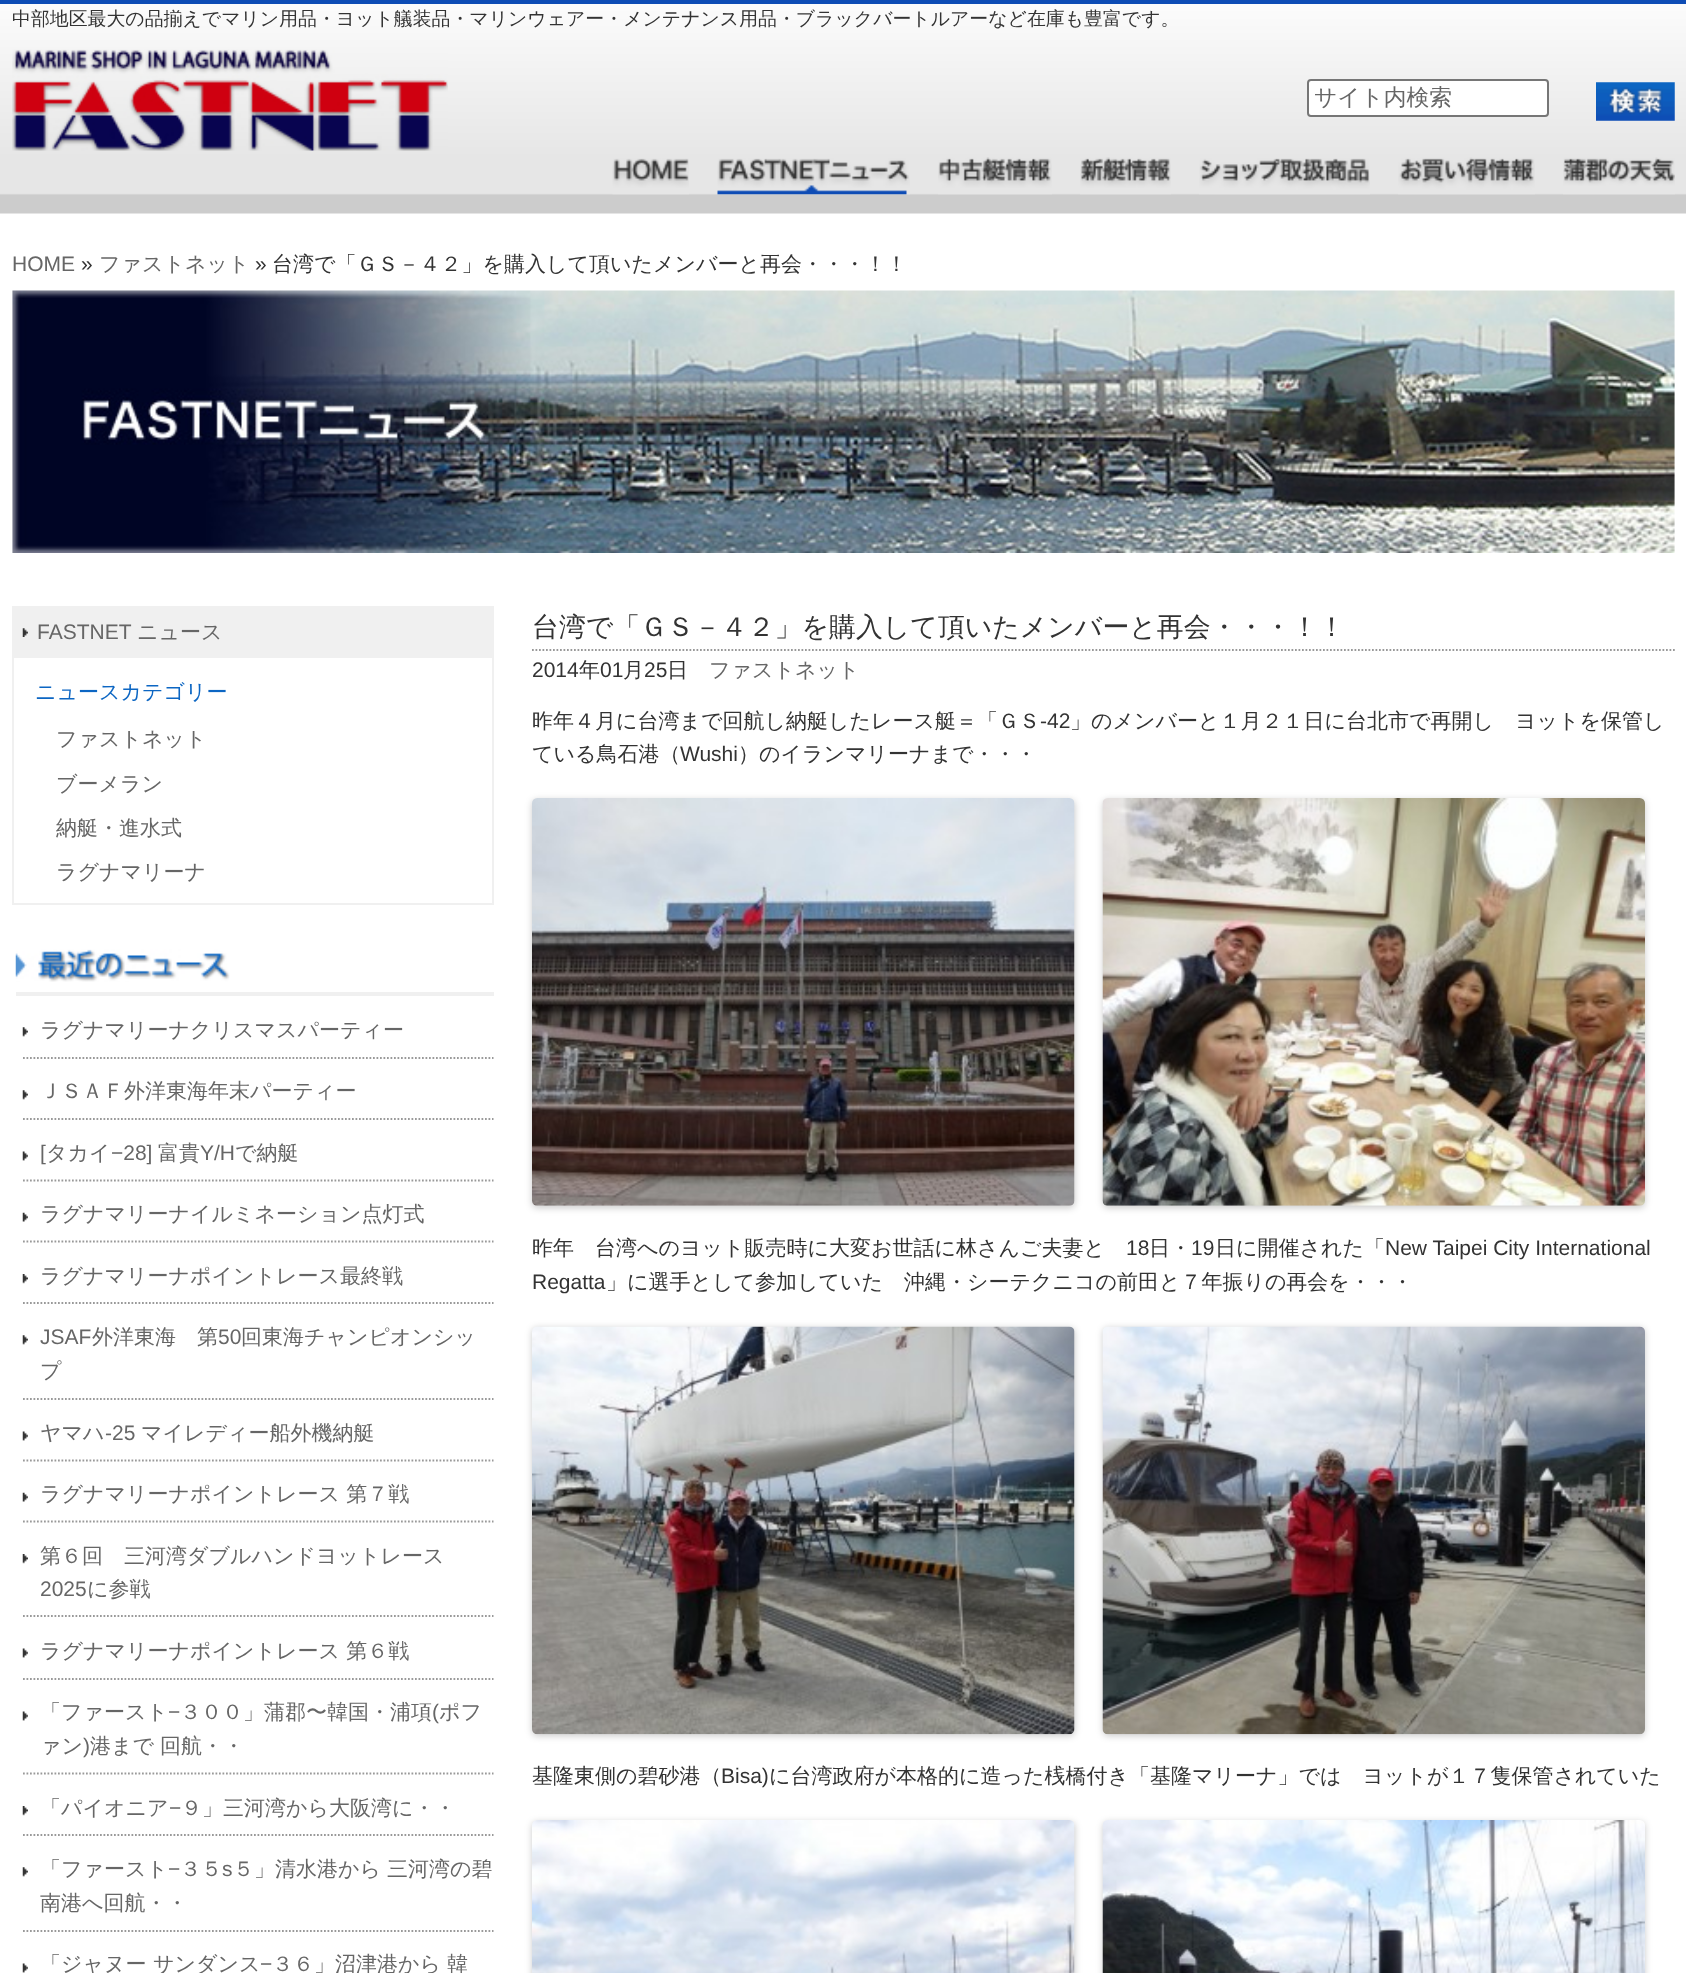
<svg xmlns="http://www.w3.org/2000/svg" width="1686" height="1973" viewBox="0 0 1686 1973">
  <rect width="100%" height="100%" fill="rgb(255,255,255)"/>
  <image x="0" y="4" width="1686" height="210" href="pic1.png"/>
  <rect x="0" y="0" width="1686" height="4" fill="rgb(13,76,181)"/>
  <text x="12" y="25" font-family="WenQuanYi Zen Hei" font-size="18.9" font-weight="500" fill="rgb(51,51,51)">中部地区最大の品揃えでマリン用品・ヨット艤装品・マリンウェアー・メンテナンス用品・ブラックバートルアーなど在庫も豊富です。</text>
  <image x="12" y="49" width="436" height="102" href="pic2.png"/>
  <rect x="1308" y="80" width="240" height="36" rx="3" fill="rgb(255,255,255)" stroke="rgb(118,118,118)" stroke-width="2"/>
  <text x="1314" y="105" font-family="WenQuanYi Zen Hei" font-size="22.75" font-weight="500" fill="rgb(102,102,102)">サイト内検索</text>
  <image x="1596" y="82" width="79" height="39" href="pic3.png"/>
  <image x="612" y="158" width="77" height="37" href="pic4.png"/>
  <image x="717" y="158" width="193" height="37" href="pic5.png"/>
  <image x="938" y="157" width="114" height="38" href="pic6.png"/>
  <image x="1080" y="157" width="91" height="38" href="pic7.png"/>
  <image x="1199" y="158" width="171" height="37" href="pic8.png"/>
  <image x="1398" y="157" width="137" height="38" href="pic9.png"/>
  <image x="1563" y="157" width="112" height="38" href="pic10.png"/>
  <text x="12" y="271" font-family="Liberation Sans" font-size="21" fill="rgb(102,102,102)">HOME</text>
  <text x="81" y="271" font-family="Liberation Sans" font-size="21" fill="rgb(51,51,51)">»</text>
  <text x="99" y="271" font-family="WenQuanYi Zen Hei" font-size="21" font-weight="500" fill="rgb(102,102,102)">ファストネット</text>
  <text x="255" y="271" font-family="Liberation Sans" font-size="21" fill="rgb(51,51,51)">»</text>
  <text x="272" y="271" font-family="WenQuanYi Zen Hei" font-size="21" font-weight="500" fill="rgb(51,51,51)">台湾で「ＧＳ－４２」を購入して頂いたメンバーと再会・・・！！</text>
  <image x="12" y="290" width="1663" height="263" href="pic11.png"/>
  <rect x="13" y="607" width="480" height="297" fill="none" stroke="rgb(240,240,240)" stroke-width="2"/>
  <rect x="14" y="608" width="478" height="50" fill="rgb(240,240,240)"/>
  <image x="22" y="628" width="6" height="9" href="pic12.png"/>
  <text x="37" y="639" font-family="Liberation Sans" font-size="21" fill="rgb(102,102,102)">FASTNET</text>
  <text x="137" y="639" font-family="WenQuanYi Zen Hei" font-size="21" font-weight="500" fill="rgb(102,102,102)">ニュース</text>
  <text x="35" y="699" font-family="WenQuanYi Zen Hei" font-size="21" font-weight="500" fill="rgb(12,102,195)">ニュースカテゴリー</text>
  <g font-family="WenQuanYi Zen Hei" font-size="21" font-weight="500" fill="rgb(102,102,102)">
    <text x="56" y="746">ファストネット</text>
    <text x="56" y="791">ブーメラン</text>
    <text x="56" y="835">納艇・進水式</text>
    <text x="56" y="879">ラグナマリーナ</text>
  </g>
  <rect x="16" y="992" width="478" height="4" fill="rgb(240,240,240)"/>
  <image x="15" y="949" width="215" height="33" href="pic13.png"/>
  <image x="22" y="1027" width="6" height="10" href="pic14.png"/>
  <path d="M23 1058H493.5" fill="none" stroke="rgb(153,153,153)" stroke-width="1.8" stroke-dasharray="1.75 1.75"/>
  <text x="40" y="1037" font-family="WenQuanYi Zen Hei" font-size="21" font-weight="500" fill="rgb(102,102,102)">ラグナマリーナクリスマスパーティー</text>
  <image x="22" y="1090" width="6" height="10" href="pic14.png"/>
  <path d="M23 1119H493.5" fill="none" stroke="rgb(153,153,153)" stroke-width="1.8" stroke-dasharray="1.75 1.75"/>
  <text x="40" y="1098" font-family="WenQuanYi Zen Hei" font-size="21" font-weight="500" fill="rgb(102,102,102)">ＪＳＡＦ外洋東海年末パーティー</text>
  <image x="22" y="1151" width="6" height="10" href="pic15.png"/>
  <path d="M23 1180.5H493.5" fill="none" stroke="rgb(153,153,153)" stroke-width="1.8" stroke-dasharray="1.75 1.75"/>
  <text x="40" y="1160" font-family="Liberation Sans" font-size="21" fill="rgb(102,102,102)">[</text>
  <text x="46" y="1160" font-family="WenQuanYi Zen Hei" font-size="21" font-weight="500" fill="rgb(102,102,102)">タカイ</text>
  <text x="111" y="1160" font-family="Liberation Sans" font-size="21" fill="rgb(102,102,102)">−28]</text>
  <text x="158" y="1160" font-family="WenQuanYi Zen Hei" font-size="21" font-weight="500" fill="rgb(102,102,102)">富貴</text>
  <text x="200" y="1160" font-family="Liberation Sans" font-size="21" fill="rgb(102,102,102)">Y/H</text>
  <text x="235" y="1160" font-family="WenQuanYi Zen Hei" font-size="21" font-weight="500" fill="rgb(102,102,102)">で納艇</text>
  <image x="22" y="1212" width="6" height="10" href="pic16.png"/>
  <path d="M23 1241.5H493.5" fill="none" stroke="rgb(153,153,153)" stroke-width="1.8" stroke-dasharray="1.75 1.75"/>
  <text x="40" y="1221" font-family="WenQuanYi Zen Hei" font-size="21" font-weight="500" fill="rgb(102,102,102)">ラグナマリーナイルミネーション点灯式</text>
  <image x="22" y="1274" width="6" height="10" href="pic17.png"/>
  <path d="M23 1303H493.5" fill="none" stroke="rgb(153,153,153)" stroke-width="1.8" stroke-dasharray="1.75 1.75"/>
  <text x="40" y="1283" font-family="WenQuanYi Zen Hei" font-size="21" font-weight="500" fill="rgb(102,102,102)">ラグナマリーナポイントレース最終戦</text>
  <image x="22" y="1335" width="6" height="10" href="pic14.png"/>
  <path d="M23 1399H493.5" fill="none" stroke="rgb(153,153,153)" stroke-width="1.8" stroke-dasharray="1.75 1.75"/>
  <text x="40" y="1344" font-family="Liberation Sans" font-size="21" fill="rgb(102,102,102)">JSAF</text>
  <text x="92" y="1344" font-family="WenQuanYi Zen Hei" font-size="21" font-weight="500" fill="rgb(102,102,102)">外洋東海　第</text>
  <text x="218" y="1344" font-family="Liberation Sans" font-size="21" fill="rgb(102,102,102)">50</text>
  <g font-family="WenQuanYi Zen Hei" font-size="21" font-weight="500" fill="rgb(102,102,102)">
    <text x="241" y="1344">回東海チャンピオンシッ</text>
    <text x="40" y="1378">プ</text>
  </g>
  <image x="22" y="1431" width="6" height="10" href="pic15.png"/>
  <path d="M23 1460.5H493.5" fill="none" stroke="rgb(153,153,153)" stroke-width="1.8" stroke-dasharray="1.75 1.75"/>
  <text x="40" y="1440" font-family="WenQuanYi Zen Hei" font-size="21" font-weight="500" fill="rgb(102,102,102)">ヤマハ</text>
  <text x="105" y="1440" font-family="Liberation Sans" font-size="21" fill="rgb(102,102,102)">-25</text>
  <text x="141" y="1440" font-family="WenQuanYi Zen Hei" font-size="21" font-weight="500" fill="rgb(102,102,102)">マイレディー船外機納艇</text>
  <image x="22" y="1492" width="6" height="10" href="pic16.png"/>
  <path d="M23 1521.5H493.5" fill="none" stroke="rgb(153,153,153)" stroke-width="1.8" stroke-dasharray="1.75 1.75"/>
  <text x="40" y="1501" font-family="WenQuanYi Zen Hei" font-size="21" font-weight="500" fill="rgb(102,102,102)">ラグナマリーナポイントレース 第７戦</text>
  <image x="22" y="1554" width="6" height="10" href="pic17.png"/>
  <path d="M23 1616H493.5" fill="none" stroke="rgb(153,153,153)" stroke-width="1.8" stroke-dasharray="1.75 1.75"/>
  <text x="40" y="1563" font-family="WenQuanYi Zen Hei" font-size="21" font-weight="500" fill="rgb(102,102,102)">第６回　三河湾ダブルハンドヨットレース</text>
  <text x="40" y="1596" font-family="Liberation Sans" font-size="21" fill="rgb(102,102,102)">2025</text>
  <text x="87" y="1596" font-family="WenQuanYi Zen Hei" font-size="21" font-weight="500" fill="rgb(102,102,102)">に参戦</text>
  <image x="22" y="1648" width="6" height="10" href="pic15.png"/>
  <path d="M23 1679H493.5" fill="none" stroke="rgb(153,153,153)" stroke-width="1.8" stroke-dasharray="1.75 1.75"/>
  <text x="40" y="1658" font-family="WenQuanYi Zen Hei" font-size="21" font-weight="500" fill="rgb(102,102,102)">ラグナマリーナポイントレース 第６戦</text>
  <image x="22" y="1711" width="6" height="10" href="pic15.png"/>
  <path d="M23 1773.5H493.5" fill="none" stroke="rgb(153,153,153)" stroke-width="1.8" stroke-dasharray="1.75 1.75"/>
  <text x="40" y="1719" font-family="WenQuanYi Zen Hei" font-size="21" font-weight="500" fill="rgb(102,102,102)">「ファースト</text>
  <text x="168" y="1719" font-family="Liberation Sans" font-size="21" fill="rgb(102,102,102)">−</text>
  <text x="180" y="1719" font-family="WenQuanYi Zen Hei" font-size="21" font-weight="500" fill="rgb(102,102,102)">３００」蒲郡〜韓国・浦項</text>
  <text x="432" y="1719" font-family="Liberation Sans" font-size="21" fill="rgb(102,102,102)">(</text>
  <g font-family="WenQuanYi Zen Hei" font-size="21" font-weight="500" fill="rgb(102,102,102)">
    <text x="439" y="1719">ポフ</text>
    <text x="40" y="1753">ァン</text>
  </g>
  <text x="83" y="1753" font-family="Liberation Sans" font-size="21" fill="rgb(102,102,102)">)</text>
  <g font-family="WenQuanYi Zen Hei" font-size="21" font-weight="500" fill="rgb(102,102,102)">
    <text x="90" y="1753">港まで</text>
    <text x="160" y="1753">回航・・</text>
  </g>
  <image x="22" y="1806" width="6" height="10" href="pic17.png"/>
  <path d="M23 1835H493.5" fill="none" stroke="rgb(153,153,153)" stroke-width="1.8" stroke-dasharray="1.75 1.75"/>
  <text x="40" y="1815" font-family="WenQuanYi Zen Hei" font-size="21" font-weight="500" fill="rgb(102,102,102)">「パイオニア</text>
  <text x="169" y="1815" font-family="Liberation Sans" font-size="21" fill="rgb(102,102,102)">−</text>
  <text x="181" y="1815" font-family="WenQuanYi Zen Hei" font-size="21" font-weight="500" fill="rgb(102,102,102)">９」三河湾から大阪湾に・・</text>
  <image x="22" y="1867" width="6" height="10" href="pic14.png"/>
  <path d="M23 1931H493.5" fill="none" stroke="rgb(153,153,153)" stroke-width="1.8" stroke-dasharray="1.75 1.75"/>
  <text x="40" y="1876" font-family="WenQuanYi Zen Hei" font-size="21" font-weight="500" fill="rgb(102,102,102)">「ファースト</text>
  <text x="168" y="1876" font-family="Liberation Sans" font-size="21" fill="rgb(102,102,102)">−</text>
  <text x="180" y="1876" font-family="WenQuanYi Zen Hei" font-size="21" font-weight="500" fill="rgb(102,102,102)">３５</text>
  <text x="222" y="1876" font-family="Liberation Sans" font-size="21" fill="rgb(102,102,102)">s</text>
  <g font-family="WenQuanYi Zen Hei" font-size="21" font-weight="500" fill="rgb(102,102,102)">
    <text x="233" y="1876">５」清水港から</text>
    <text x="387" y="1876">三河湾の碧</text>
    <text x="40" y="1910">南港へ回航・・</text>
  </g>
  <image x="22" y="1963" width="6" height="10" href="pic15.png"/>
  <g font-family="WenQuanYi Zen Hei" font-size="21" font-weight="500" fill="rgb(102,102,102)">
    <text x="40" y="1971">「ジャヌー</text>
    <text x="153" y="1971">サンダンス</text>
  </g>
  <text x="260" y="1971" font-family="Liberation Sans" font-size="21" fill="rgb(102,102,102)">−</text>
  <g font-family="WenQuanYi Zen Hei" font-size="21" font-weight="500" fill="rgb(102,102,102)">
    <text x="272" y="1971">３６」沼津港から</text>
    <text x="447" y="1971">韓</text>
  </g>
  <path d="M532 650H1675" fill="none" stroke="rgb(153,153,153)" stroke-width="1.8" stroke-dasharray="1.75 1.75"/>
  <text x="532" y="636" font-family="WenQuanYi Zen Hei" font-size="26.9" font-weight="500" fill="rgb(51,51,51)">台湾で「ＧＳ－４２」を購入して頂いたメンバーと再会・・・！！</text>
  <text x="532" y="677" font-family="Liberation Sans" font-size="21" fill="rgb(51,51,51)">2014</text>
  <text x="579" y="677" font-family="WenQuanYi Zen Hei" font-size="21" font-weight="500" fill="rgb(51,51,51)">年</text>
  <text x="600" y="677" font-family="Liberation Sans" font-size="21" fill="rgb(51,51,51)">01</text>
  <text x="623" y="677" font-family="WenQuanYi Zen Hei" font-size="21" font-weight="500" fill="rgb(51,51,51)">月</text>
  <text x="644" y="677" font-family="Liberation Sans" font-size="21" fill="rgb(51,51,51)">25</text>
  <text x="667" y="677" font-family="WenQuanYi Zen Hei" font-size="21" font-weight="500" fill="rgb(51,51,51)">日</text>
  <text x="709" y="677" font-family="WenQuanYi Zen Hei" font-size="21" font-weight="500" fill="rgb(102,102,102)">ファストネット</text>
  <text x="532" y="728" font-family="WenQuanYi Zen Hei" font-size="21" font-weight="500" fill="rgb(51,51,51)">昨年４月に台湾まで回航し納艇したレース艇＝「ＧＳ</text>
  <text x="1040" y="728" font-family="Liberation Sans" font-size="21" fill="rgb(51,51,51)">-42</text>
  <g font-family="WenQuanYi Zen Hei" font-size="21" font-weight="500" fill="rgb(51,51,51)">
    <text x="1070" y="728">」のメンバーと１月２１日に台北市で再開し　ヨットを保管し</text>
    <text x="532" y="761">ている鳥石港（</text>
  </g>
  <text x="680" y="761" font-family="Liberation Sans" font-size="21" fill="rgb(51,51,51)">Wushi</text>
  <text x="738" y="761" font-family="WenQuanYi Zen Hei" font-size="21" font-weight="500" fill="rgb(51,51,51)">）のイランマリーナまで・・・</text>
  <rect x="532" y="800" width="543" height="408" rx="5" fill="rgba(0,0,0,0.2)" filter="blur(3.5px)"/>
  <image x="532" y="798" width="543" height="408" href="pic18.png"/>
  <rect x="1103" y="800" width="542" height="408" rx="5" fill="rgba(0,0,0,0.2)" filter="blur(3.5px)"/>
  <image x="1102" y="798" width="543" height="408" href="pic19.png"/>
  <text x="532" y="1255" font-family="WenQuanYi Zen Hei" font-size="21" font-weight="500" fill="rgb(51,51,51)">昨年　台湾へのヨット販売時に大変お世話に林さんご夫妻と</text>
  <text x="1126" y="1255" font-family="Liberation Sans" font-size="21" fill="rgb(51,51,51)">18</text>
  <text x="1149" y="1255" font-family="WenQuanYi Zen Hei" font-size="21" font-weight="500" fill="rgb(51,51,51)">日・</text>
  <text x="1191" y="1255" font-family="Liberation Sans" font-size="21" fill="rgb(51,51,51)">19</text>
  <text x="1215" y="1255" font-family="WenQuanYi Zen Hei" font-size="21" font-weight="500" fill="rgb(51,51,51)">日に開催された「</text>
  <g font-family="Liberation Sans" font-size="21" fill="rgb(51,51,51)">
    <text x="1385" y="1255">New Taipei City International</text>
    <text x="532" y="1289">Regatta</text>
  </g>
  <text x="606" y="1289" font-family="WenQuanYi Zen Hei" font-size="21" font-weight="500" fill="rgb(51,51,51)">」に選手として参加していた　沖縄・シーテクニコの前田と７年振りの再会を・・・</text>
  <rect x="532" y="1328" width="543" height="408" rx="5" fill="rgba(0,0,0,0.2)" filter="blur(3.5px)"/>
  <image x="532" y="1326" width="543" height="409" href="pic20.png"/>
  <rect x="1103" y="1328" width="542" height="408" rx="5" fill="rgba(0,0,0,0.2)" filter="blur(3.5px)"/>
  <image x="1102" y="1326" width="543" height="409" href="pic21.png"/>
  <text x="532" y="1783" font-family="WenQuanYi Zen Hei" font-size="21" font-weight="500" fill="rgb(51,51,51)">基隆東側の碧砂港（</text>
  <text x="721" y="1783" font-family="Liberation Sans" font-size="21" fill="rgb(51,51,51)">Bisa)</text>
  <text x="769" y="1783" font-family="WenQuanYi Zen Hei" font-size="21" font-weight="500" fill="rgb(51,51,51)">に台湾政府が本格的に造った桟橋付き「基隆マリーナ」では　ヨットが１７隻保管されていた</text>
  <rect x="532" y="1822" width="543" height="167" rx="5" fill="rgba(0,0,0,0.2)" filter="blur(3.5px)"/>
  <image x="532" y="1820" width="543" height="153" href="pic22.png"/>
  <rect x="1103" y="1822" width="542" height="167" rx="5" fill="rgba(0,0,0,0.2)" filter="blur(3.5px)"/>
  <image x="1102" y="1820" width="543" height="153" href="pic23.png"/>
</svg>
